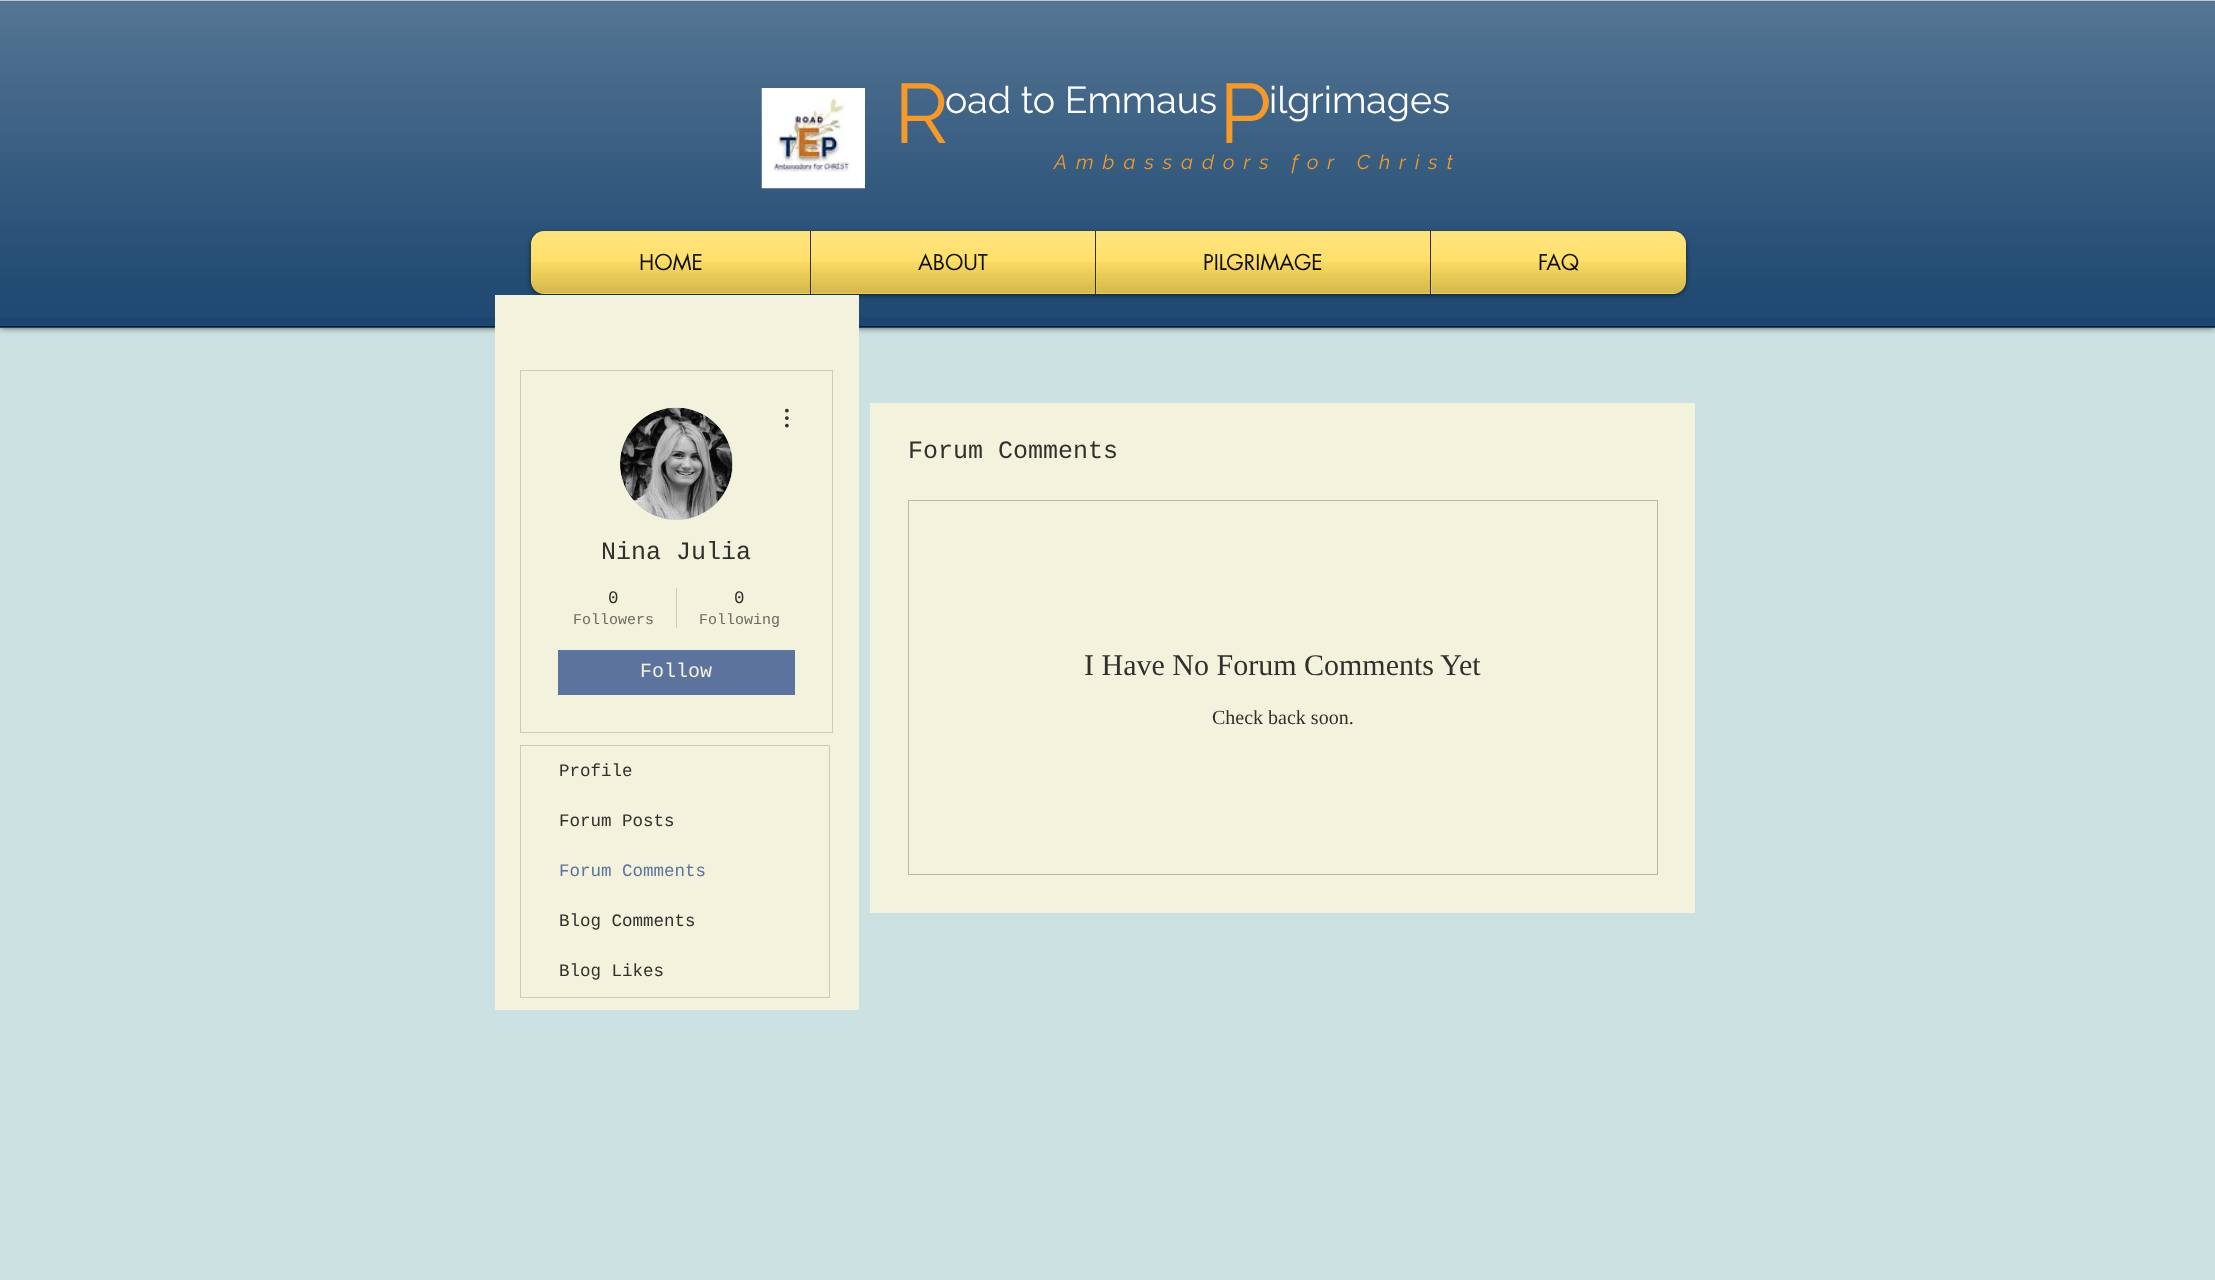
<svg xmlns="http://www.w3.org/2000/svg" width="2215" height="1280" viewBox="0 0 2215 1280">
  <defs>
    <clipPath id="clip1"><path d="M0 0H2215V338H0ZM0 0H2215V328H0Z" clip-rule="evenodd"/></clipPath>
  </defs>
  <rect width="100%" height="100%" fill="rgb(204,226,226)"/>
  <g clip-path="url(#clip1)">
    <rect x="0" y="0" width="2215" height="328" fill="rgba(0,0,0,0.6)" filter="blur(3px)"/>
  </g>
  <rect x="0" y="1" width="2215" height="327" fill="rgba(0,46,93,0.87)"/>
  <image x="0" y="1" width="2215" height="316" href="pic1.png"/>
  <rect x="0" y="326" width="2215" height="1" fill="rgb(11,28,44)"/>
  <rect x="0" y="0" width="2215" height="1" fill="rgb(187,200,212)"/>
  <image x="761" y="88" width="104" height="101" href="pic2.png"/>
  <text x="894" y="143" font-family="Raleway" font-size="84" fill="rgb(245,154,40)">R</text>
  <text x="945" y="113" font-family="Raleway" font-size="37.5" fill="rgb(255,255,255)">oad to Emmaus</text>
  <text x="1219" y="143" font-family="Raleway" font-size="84" fill="rgb(245,154,40)">P</text>
  <text x="1269" y="113" font-family="Raleway" font-size="37.5" fill="rgb(255,255,255)">ilgrimages</text>
  <text x="1054" y="169" font-family="Raleway" font-size="20" font-style="italic" letter-spacing="9" fill="rgb(245,154,40)">Ambassadors for Christ</text>
  <rect x="531" y="233" width="1155" height="62" rx="13" fill="rgba(0,0,0,0.6)" filter="blur(2.5px)"/>
  <image x="531" y="231" width="1155" height="13" href="pic3.png"/>
  <image x="531" y="281" width="1155" height="13" href="pic4.png"/>
  <path d="M544 231H810V294H544C537 294 531 288 531 281V244C531 237 537 231 544 231Z" fill="rgb(255,222,95)"/>
  <text x="639" y="270" font-family="futura" font-size="21.25" fill="rgb(0,0,0)">HOME</text>
  <image x="531" y="231" width="279" height="40" href="pic5.png"/>
  <image x="531" y="262" width="279" height="32" href="pic6.png"/>
  <rect x="811" y="231" width="284" height="63" fill="rgb(255,222,95)"/>
  <rect x="810" y="231" width="1" height="63" fill="rgb(49,48,44)"/>
  <text x="918" y="270" font-family="futura" font-size="21.25" fill="rgb(0,0,0)">ABOUT</text>
  <image x="811" y="231" width="284" height="40" href="pic7.png"/>
  <image x="811" y="262" width="284" height="32" href="pic8.png"/>
  <rect x="1096" y="231" width="334" height="63" fill="rgb(255,222,95)"/>
  <rect x="1095" y="231" width="1" height="63" fill="rgb(49,48,44)"/>
  <text x="1203" y="270" font-family="futura" font-size="21.25" fill="rgb(0,0,0)">PILGRIMAGE</text>
  <image x="1096" y="231" width="334" height="40" href="pic9.png"/>
  <image x="1096" y="262" width="334" height="32" href="pic10.png"/>
  <path d="M1430 231H1673C1680 231 1686 237 1686 244V281C1686 288 1680 294 1673 294H1430Z" fill="rgb(255,222,95)"/>
  <rect x="1430" y="231" width="1" height="63" fill="rgb(49,48,44)"/>
  <text x="1538" y="270" font-family="futura" font-size="21.25" fill="rgb(0,0,0)">FAQ</text>
  <image x="1431" y="231" width="255" height="40" href="pic11.png"/>
  <image x="1431" y="262" width="255" height="32" href="pic12.png"/>
  <rect x="495" y="295" width="364" height="715" fill="rgb(243,242,220)"/>
  <rect x="520.5" y="370.5" width="312" height="362" fill="none" stroke="rgb(204,203,185)"/>
  <rect x="620" y="408" width="113" height="112" rx="56" fill="rgb(216,216,216)"/>
  <image x="620" y="407" width="113" height="113" href="pic13.png"/>
  <image x="785" y="408" width="4" height="20" href="pic14.png"/>
  <text x="601" y="559" font-family="Liberation Mono" font-size="25" fill="rgb(49,48,44)">Nina Julia</text>
  <text x="608" y="603" font-family="Liberation Mono" font-size="17.5" fill="rgb(49,48,44)">0</text>
  <text x="573" y="624" font-family="Liberation Mono" font-size="15" fill="rgb(107,106,97)">Followers</text>
  <rect x="676" y="588" width="1" height="40" fill="rgb(204,203,185)"/>
  <text x="734" y="603" font-family="Liberation Mono" font-size="17.5" fill="rgb(49,48,44)">0</text>
  <text x="699" y="624" font-family="Liberation Mono" font-size="15" fill="rgb(107,106,97)">Following</text>
  <rect x="558" y="650" width="237" height="45" fill="rgb(92,115,157)"/>
  <text x="640" y="677" font-family="Liberation Mono" font-size="20" fill="rgb(243,242,220)">Follow</text>
  <rect x="520.5" y="745.5" width="309" height="252" fill="none" stroke="rgb(204,203,185)"/>
  <g font-family="Liberation Mono" font-size="17.5" fill="rgb(49,48,44)">
    <text x="559" y="776">Profile</text>
    <text x="559" y="826">Forum Posts</text>
  </g>
  <text x="559" y="876" font-family="Liberation Mono" font-size="17.5" fill="rgb(92,115,157)">Forum Comments</text>
  <g font-family="Liberation Mono" font-size="17.5" fill="rgb(49,48,44)">
    <text x="559" y="926">Blog Comments</text>
    <text x="559" y="976">Blog Likes</text>
  </g>
  <rect x="870" y="403" width="825" height="510" fill="rgb(243,242,220)"/>
  <text x="908" y="458" font-family="Liberation Mono" font-size="25" fill="rgb(49,48,44)">Forum Comments</text>
  <rect x="908.5" y="500.5" width="749" height="374" fill="none" stroke="rgb(185,184,167)"/>
  <text x="1084" y="675" font-family="Liberation Serif" font-size="30" fill="rgb(49,48,44)">I Have No Forum Comments Yet</text>
  <text x="1212" y="724" font-family="Liberation Serif" font-size="20" fill="rgb(49,48,44)">Check back soon.</text>
</svg>
